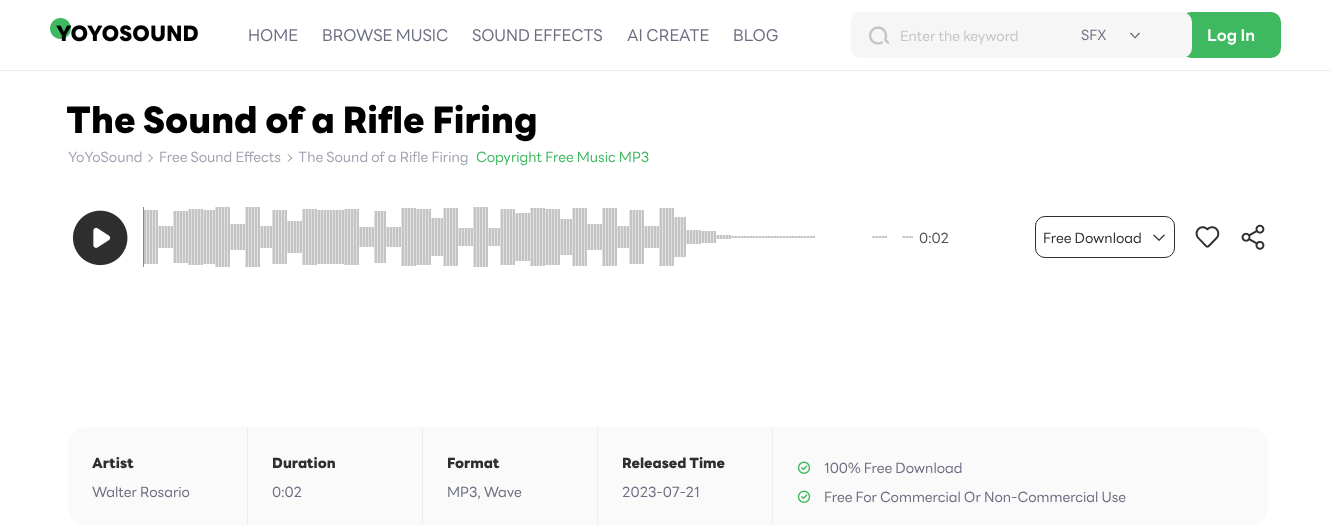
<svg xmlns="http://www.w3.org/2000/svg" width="1331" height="525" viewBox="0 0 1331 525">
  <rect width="100%" height="100%" fill="rgb(255,255,255)"/>
  <rect x="0" y="70" width="1331" height="1" fill="rgb(237,237,238)"/>
  <image x="50" y="18" width="148" height="24" href="pic1.png"/>
  <g font-family="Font" font-size="16" fill="rgb(107,109,129)">
    <text x="248" y="41">HOME</text>
    <text x="322" y="41">BROWSE MUSIC</text>
    <text x="472" y="41">SOUND EFFECTS</text>
    <text x="627" y="41">AI CREATE</text>
    <text x="733" y="41">BLOG</text>
  </g>
  <rect x="1181" y="12" width="100" height="46" rx="10" fill="rgb(62,185,96)"/>
  <rect x="851" y="12" width="341" height="46" rx="10" fill="rgb(246,246,247)"/>
  <image x="869" y="26" width="21" height="19" href="pic2.png"/>
  <text x="900" y="41" font-family="Font" font-size="14" fill="rgb(196,196,196)">Enter the keyword</text>
  <text x="1081" y="40" font-family="Font" font-size="14" fill="rgb(107,109,129)">SFX</text>
  <path d="M1139 32.5L1140 33.5L1135 38.5L1134.5 37.5Z" fill="rgb(102,102,102)"/>
  <path d="M1131 32.5L1135.5 37.5L1135 38.5L1130 33.5Z" fill="rgb(102,102,102)"/>
  <text x="1207" y="41" font-family="Font" font-size="16" font-weight="bold" fill="rgb(255,255,255)">Log In</text>
  <text x="66" y="133" font-family="Font" font-size="36" font-weight="800" fill="rgb(0,0,0)">The Sound of a Rifle Firing</text>
  <text x="68" y="162" font-family="Font" font-size="14" fill="rgb(160,162,176)">YoYoSound</text>
  <path d="M149 154L153 158L152.5 158.5L148 154.5Z" fill="rgb(153,153,153)"/>
  <path d="M152.5 157.5L153 158L149 162L148 161.5Z" fill="rgb(153,153,153)"/>
  <text x="159" y="162" font-family="Font" font-size="14" fill="rgb(160,162,176)">Free Sound Effects</text>
  <path d="M288 154L292.5 158L291.5 158.5L287.5 154.5Z" fill="rgb(153,153,153)"/>
  <path d="M291.5 157.5L292.5 158L288 162L287.5 161.5Z" fill="rgb(153,153,153)"/>
  <text x="298" y="162" font-family="Font" font-size="14" fill="rgb(160,162,176)">The Sound of a Rifle Firing</text>
  <text x="476" y="162" font-family="Font" font-size="14" fill="rgb(62,185,96)">Copyright Free Music MP3</text>
  <image x="72" y="210" width="56" height="56" href="pic3.png"/>
  <rect x="143" y="207" width="1" height="60" fill="rgb(62,185,96)"/>
  <image x="144" y="207" width="769" height="60" href="pic4.png"/>
  <text x="919" y="243" font-family="Font" font-size="14" fill="rgb(80,80,80)">0:02</text>
  <rect x="1035.5" y="216.5" width="139" height="41" rx="9.5" fill="none" stroke="rgb(46,46,46)"/>
  <text x="1043" y="243" font-family="Font" font-size="14" fill="rgb(46,46,46)">Free Download</text>
  <image x="1153" y="234" width="12" height="7" href="pic5.png"/>
  <image x="1195" y="226" width="25" height="22" href="pic6.png"/>
  <image x="1241" y="224" width="24" height="26" href="pic7.png"/>
  <rect x="68" y="427" width="1200" height="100" rx="20" fill="rgb(250,250,250)"/>
  <rect x="247" y="427" width="1" height="98" fill="rgb(237,237,238)"/>
  <text x="92" y="468" font-family="Font" font-size="14" font-weight="800" fill="rgb(46,46,46)">Artist</text>
  <text x="92" y="497" font-family="Font" font-size="14" fill="rgb(107,109,129)">Walter Rosario</text>
  <rect x="422" y="427" width="1" height="98" fill="rgb(237,237,238)"/>
  <text x="272" y="468" font-family="Font" font-size="14" font-weight="800" fill="rgb(46,46,46)">Duration</text>
  <text x="272" y="497" font-family="Font" font-size="14" fill="rgb(107,109,129)">0:02</text>
  <rect x="597" y="427" width="1" height="98" fill="rgb(237,237,238)"/>
  <text x="447" y="468" font-family="Font" font-size="14" font-weight="800" fill="rgb(46,46,46)">Format</text>
  <text x="447" y="497" font-family="Font" font-size="14" fill="rgb(107,109,129)">MP3, Wave</text>
  <rect x="772" y="427" width="1" height="98" fill="rgb(237,237,238)"/>
  <text x="622" y="468" font-family="Font" font-size="14" font-weight="800" fill="rgb(46,46,46)">Released Time</text>
  <text x="622" y="497" font-family="Font" font-size="14" fill="rgb(107,109,129)">2023-07-21</text>
  <image x="797" y="461" width="14" height="13" href="pic8.png"/>
  <text x="824" y="473" font-family="Font" font-size="14" fill="rgb(107,109,129)">100% Free Download</text>
  <image x="797" y="490" width="14" height="13" href="pic8.png"/>
  <text x="824" y="502" font-family="Font" font-size="14" fill="rgb(107,109,129)">Free For Commercial Or Non-Commercial Use</text>
</svg>
